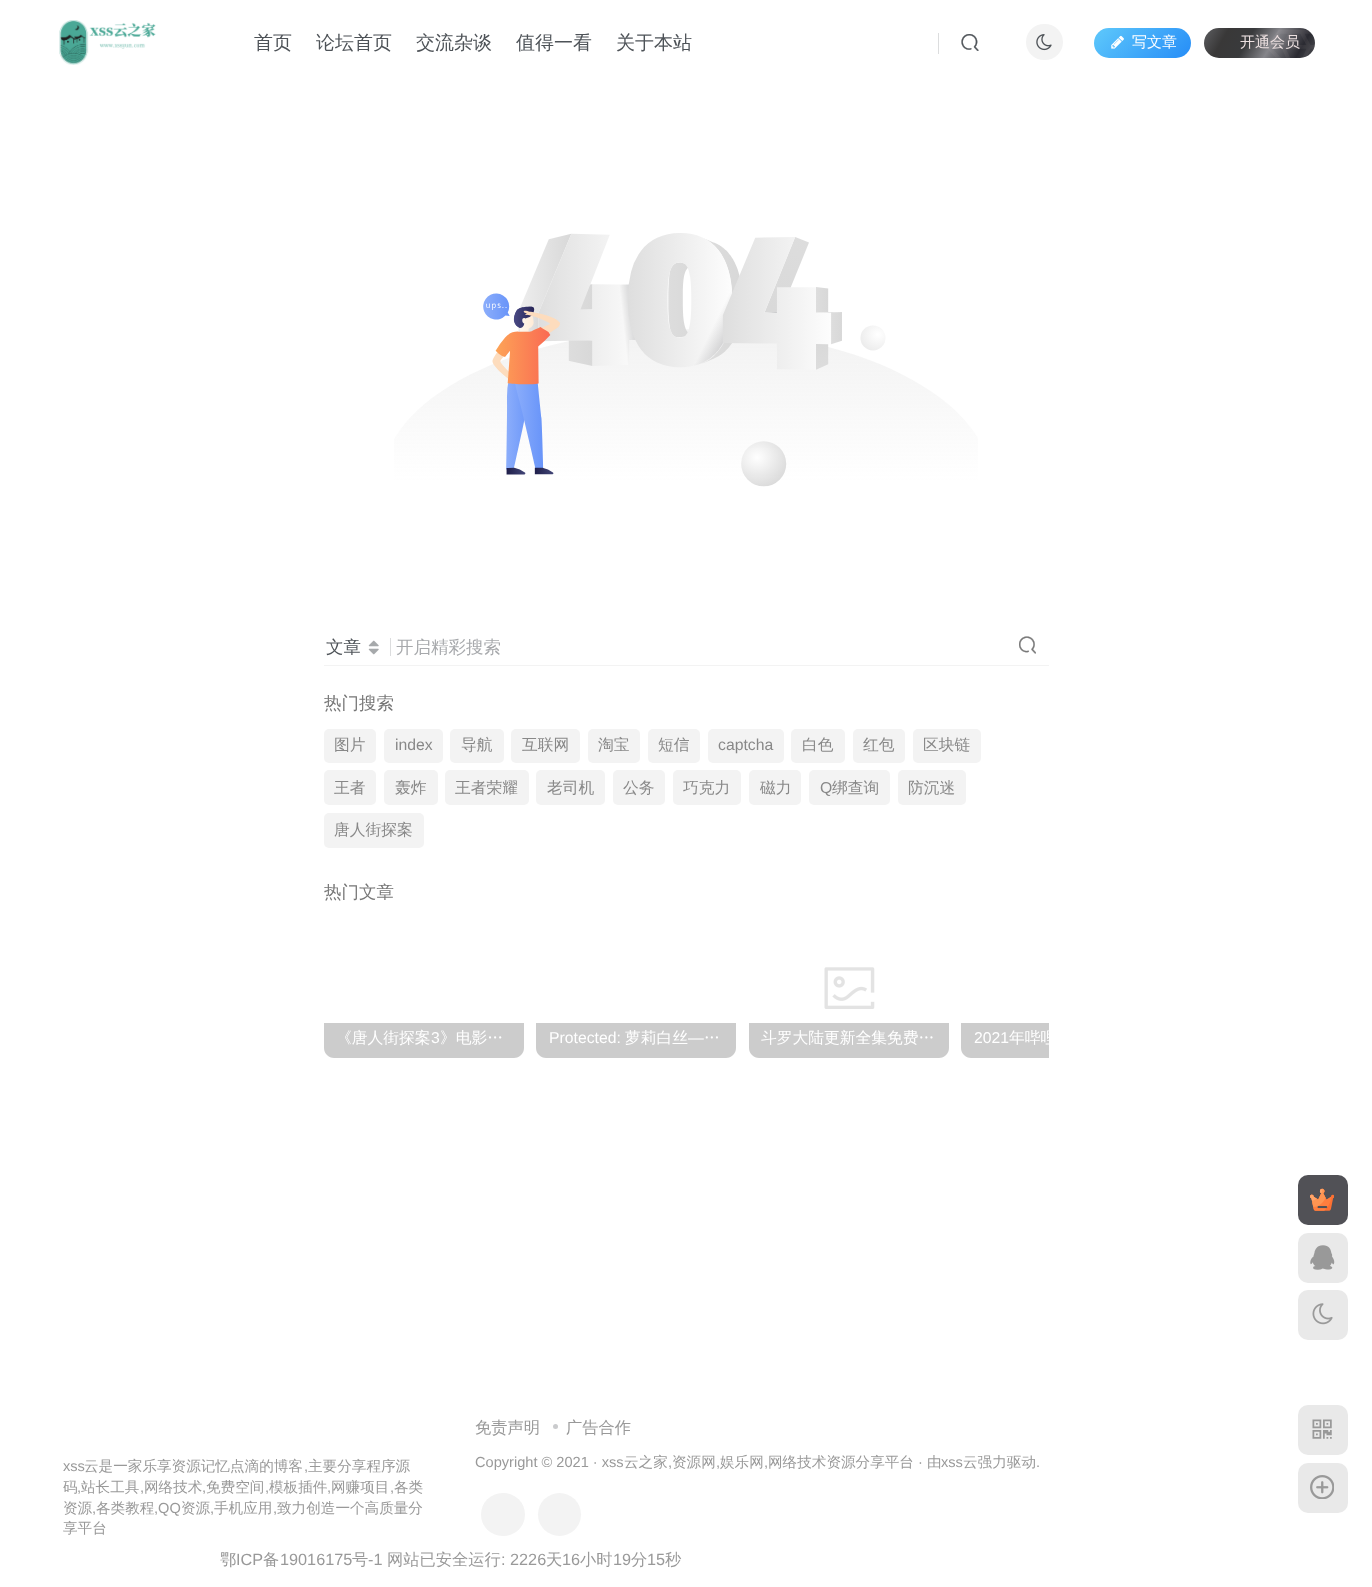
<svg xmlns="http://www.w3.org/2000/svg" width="1372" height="1587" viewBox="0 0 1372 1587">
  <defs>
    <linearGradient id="g1" gradientUnits="userSpaceOnUse" x1="1111" y1="11" x2="1174" y2="74"><stop offset="0.1" stop-color="rgb(89,195,251)"/><stop offset="1" stop-color="rgb(38,141,247)"/></linearGradient>
    <linearGradient id="g2" gradientUnits="userSpaceOnUse" x1="1308" y1="70" x2="1211" y2="15"><stop offset="0" stop-color="rgb(76,77,81)"/><stop offset="0.15" stop-color="rgb(42,42,49)"/><stop offset="0.4" stop-color="rgb(133,133,138)"/><stop offset="0.6" stop-color="rgb(57,58,60)"/><stop offset="0.8" stop-color="rgb(57,56,56)"/><stop offset="1" stop-color="rgb(94,95,98)"/></linearGradient>
    <clipPath id="clip1"><rect x="961" y="1023" width="88" height="35"/></clipPath>
  </defs>
  <rect width="100%" height="100%" fill="rgb(255,255,255)"/>
  <image x="59" y="20" width="97" height="45" href="pic1.png"/>
  <g font-family="WenQuanYi Zen Hei" font-size="19" font-weight="500" fill="rgb(78,83,88)">
    <text x="254" y="49">首页</text>
    <text x="316" y="49">论坛首页</text>
    <text x="416" y="49">交流杂谈</text>
    <text x="516" y="49">值得一看</text>
    <text x="616" y="49">关于本站</text>
  </g>
  <rect x="938" y="33" width="1" height="21" fill="rgb(220,221,222)"/>
  <image x="961" y="34" width="18" height="17" href="pic2.png"/>
  <rect x="1026" y="24" width="37" height="36" rx="18" fill="rgb(243,243,243)"/>
  <image x="1036" y="34" width="16" height="17" href="pic3.png"/>
  <rect x="1094" y="28" width="97" height="30" rx="15" fill="url(#g1)"/>
  <image x="1111" y="35" width="13" height="14" href="pic4.png"/>
  <text x="1132" y="47" font-family="WenQuanYi Zen Hei" font-size="15" font-weight="500" fill="rgb(255,255,255)">写文章</text>
  <rect x="1204" y="28" width="111" height="30" rx="15" fill="url(#g2)"/>
  <text x="1240" y="47" font-family="WenQuanYi Zen Hei" font-size="15" font-weight="500" fill="rgb(236,224,224)">开通会员</text>
  <image x="1266" y="30" width="49" height="28" href="pic5.png"/>
  <image x="394" y="233" width="584" height="254" href="pic6.png"/>
  <text x="326" y="653" font-family="WenQuanYi Zen Hei" font-size="17.5" font-weight="500" fill="rgb(78,83,88)">文章</text>
  <image x="368" y="640" width="11" height="15" href="pic7.png"/>
  <rect x="390" y="638" width="1" height="18" fill="rgb(220,221,222)"/>
  <text x="396" y="653" font-family="WenQuanYi Zen Hei" font-size="17.5" font-weight="500" fill="rgb(167,169,172)">开启精彩搜索</text>
  <image x="1019" y="636" width="17" height="18" href="pic8.png"/>
  <rect x="324" y="665" width="725" height="1" fill="rgb(243,243,243)"/>
  <text x="324" y="709" font-family="WenQuanYi Zen Hei" font-size="17.5" font-weight="500" fill="rgb(119,119,119)">热门搜索</text>
  <rect x="324" y="729" width="52" height="34" rx="5" fill="rgb(243,243,243)"/>
  <text x="334" y="750" font-family="WenQuanYi Zen Hei" font-size="15.75" font-weight="500" fill="rgb(136,136,136)">图片</text>
  <rect x="384" y="729" width="59" height="34" rx="5" fill="rgb(243,243,243)"/>
  <text x="395" y="750" font-family="Liberation Sans" font-size="15.75" fill="rgb(136,136,136)">index</text>
  <rect x="450" y="729" width="54" height="34" rx="5" fill="rgb(243,243,243)"/>
  <text x="461" y="750" font-family="WenQuanYi Zen Hei" font-size="15.75" font-weight="500" fill="rgb(136,136,136)">导航</text>
  <rect x="511" y="729" width="69" height="34" rx="5" fill="rgb(243,243,243)"/>
  <text x="522" y="750" font-family="WenQuanYi Zen Hei" font-size="15.75" font-weight="500" fill="rgb(136,136,136)">互联网</text>
  <rect x="588" y="729" width="52" height="34" rx="5" fill="rgb(243,243,243)"/>
  <text x="598" y="750" font-family="WenQuanYi Zen Hei" font-size="15.75" font-weight="500" fill="rgb(136,136,136)">淘宝</text>
  <rect x="648" y="729" width="52" height="34" rx="5" fill="rgb(243,243,243)"/>
  <text x="658" y="750" font-family="WenQuanYi Zen Hei" font-size="15.75" font-weight="500" fill="rgb(136,136,136)">短信</text>
  <rect x="708" y="729" width="76" height="34" rx="5" fill="rgb(243,243,243)"/>
  <text x="718" y="750" font-family="Liberation Sans" font-size="15.75" fill="rgb(136,136,136)">captcha</text>
  <rect x="791" y="729" width="54" height="34" rx="5" fill="rgb(243,243,243)"/>
  <text x="802" y="750" font-family="WenQuanYi Zen Hei" font-size="15.75" font-weight="500" fill="rgb(136,136,136)">白色</text>
  <rect x="853" y="729" width="52" height="34" rx="5" fill="rgb(243,243,243)"/>
  <text x="863" y="750" font-family="WenQuanYi Zen Hei" font-size="15.75" font-weight="500" fill="rgb(136,136,136)">红包</text>
  <rect x="913" y="729" width="68" height="34" rx="5" fill="rgb(243,243,243)"/>
  <text x="923" y="750" font-family="WenQuanYi Zen Hei" font-size="15.75" font-weight="500" fill="rgb(136,136,136)">区块链</text>
  <rect x="324" y="770" width="52" height="35" rx="5" fill="rgb(243,243,243)"/>
  <text x="334" y="793" font-family="WenQuanYi Zen Hei" font-size="15.75" font-weight="500" fill="rgb(136,136,136)">王者</text>
  <rect x="384" y="770" width="54" height="35" rx="5" fill="rgb(243,243,243)"/>
  <text x="395" y="793" font-family="WenQuanYi Zen Hei" font-size="15.75" font-weight="500" fill="rgb(136,136,136)">轰炸</text>
  <rect x="445" y="770" width="84" height="35" rx="5" fill="rgb(243,243,243)"/>
  <text x="455" y="793" font-family="WenQuanYi Zen Hei" font-size="15.75" font-weight="500" fill="rgb(136,136,136)">王者荣耀</text>
  <rect x="536" y="770" width="69" height="35" rx="5" fill="rgb(243,243,243)"/>
  <text x="547" y="793" font-family="WenQuanYi Zen Hei" font-size="15.75" font-weight="500" fill="rgb(136,136,136)">老司机</text>
  <rect x="613" y="770" width="52" height="35" rx="5" fill="rgb(243,243,243)"/>
  <text x="623" y="793" font-family="WenQuanYi Zen Hei" font-size="15.75" font-weight="500" fill="rgb(136,136,136)">公务</text>
  <rect x="673" y="770" width="68" height="35" rx="5" fill="rgb(243,243,243)"/>
  <text x="683" y="793" font-family="WenQuanYi Zen Hei" font-size="15.75" font-weight="500" fill="rgb(136,136,136)">巧克力</text>
  <rect x="749" y="770" width="52" height="35" rx="5" fill="rgb(243,243,243)"/>
  <text x="760" y="793" font-family="WenQuanYi Zen Hei" font-size="15.75" font-weight="500" fill="rgb(136,136,136)">磁力</text>
  <rect x="809" y="770" width="81" height="35" rx="5" fill="rgb(243,243,243)"/>
  <text x="820" y="793" font-family="Liberation Sans" font-size="15.75" fill="rgb(136,136,136)">Q</text>
  <text x="832" y="793" font-family="WenQuanYi Zen Hei" font-size="15.75" font-weight="500" fill="rgb(136,136,136)">绑查询</text>
  <rect x="898" y="770" width="68" height="35" rx="5" fill="rgb(243,243,243)"/>
  <text x="908" y="793" font-family="WenQuanYi Zen Hei" font-size="15.75" font-weight="500" fill="rgb(136,136,136)">防沉迷</text>
  <rect x="324" y="813" width="100" height="35" rx="5" fill="rgb(243,243,243)"/>
  <text x="334" y="835" font-family="WenQuanYi Zen Hei" font-size="15.75" font-weight="500" fill="rgb(136,136,136)">唐人街探案</text>
  <text x="324" y="898" font-family="WenQuanYi Zen Hei" font-size="17.5" font-weight="500" fill="rgb(119,119,119)">热门文章</text>
  <path d="M324 1023H524V1048C524 1053.5 519.5 1058 514 1058H334C328.5 1058 324 1053.5 324 1048Z" fill="rgba(0,0,0,0.2)"/>
  <text x="336" y="1043" font-family="WenQuanYi Zen Hei" font-size="15.75" font-weight="500" fill="rgb(255,255,255)">《唐人街探案</text>
  <text x="431" y="1043" font-family="Liberation Sans" font-size="15.75" fill="rgb(255,255,255)">3</text>
  <text x="440" y="1043" font-family="WenQuanYi Zen Hei" font-size="15.75" font-weight="500" fill="rgb(255,255,255)">》电影…</text>
  <path d="M536 1023H736V1048C736 1053.5 731.5 1058 726 1058H546C540.5 1058 536 1053.5 536 1048Z" fill="rgba(0,0,0,0.2)"/>
  <text x="549" y="1043" font-family="Liberation Sans" font-size="15.75" fill="rgb(255,255,255)">Protected:</text>
  <text x="625" y="1043" font-family="WenQuanYi Zen Hei" font-size="15.75" font-weight="500" fill="rgb(255,255,255)">萝莉白丝</text>
  <text x="688" y="1043" font-family="Liberation Sans" font-size="15.75" fill="rgb(255,255,255)">—</text>
  <text x="704" y="1043" font-family="WenQuanYi Zen Hei" font-size="15.75" font-weight="500" fill="rgb(255,255,255)">…</text>
  <image x="824" y="967" width="51" height="42" href="pic9.png"/>
  <path d="M749 1023H949V1048C949 1053.5 944.5 1058 939 1058H759C753.5 1058 749 1053.5 749 1048Z" fill="rgba(0,0,0,0.2)"/>
  <text x="761" y="1043" font-family="WenQuanYi Zen Hei" font-size="15.75" font-weight="500" fill="rgb(255,255,255)">斗罗大陆更新全集免费…</text>
  <path d="M961 1023H1049V1058H971C965.5 1058 961 1053.5 961 1048Z" fill="rgba(0,0,0,0.2)"/>
  <text x="974" y="1043" font-family="Liberation Sans" font-size="15.75" fill="rgb(255,255,255)">2021</text>
  <g clip-path="url(#clip1)">
    <text x="1009" y="1043" font-family="WenQuanYi Zen Hei" font-size="15.75" font-weight="500" fill="rgb(255,255,255)">年哔哩</text>
  </g>
  <text x="475" y="1433" font-family="WenQuanYi Zen Hei" font-size="16.25" font-weight="500" fill="rgb(153,153,153)">免责声明</text>
  <circle cx="555.5" cy="1426.5" r="2.5" fill="rgb(202,203,205)"/>
  <text x="566" y="1433" font-family="WenQuanYi Zen Hei" font-size="16.25" font-weight="500" fill="rgb(153,153,153)">广告合作</text>
  <text x="475" y="1467" font-family="Liberation Sans" font-size="14.6" fill="rgb(153,153,153)">Copyright © 2021 · xss</text>
  <g font-family="WenQuanYi Zen Hei" font-size="14.6" font-weight="500" fill="rgb(153,153,153)">
    <text x="624" y="1467">云之家</text>
    <text x="672" y="1467">资源网</text>
    <text x="720" y="1467">娱乐网</text>
    <text x="768" y="1467">网络技术资源分享平台</text>
  </g>
  <text x="918" y="1467" font-family="Liberation Sans" font-size="14.6" fill="rgb(153,153,153)">·</text>
  <text x="927" y="1467" font-family="WenQuanYi Zen Hei" font-size="14.6" font-weight="500" fill="rgb(153,153,153)">由</text>
  <text x="941" y="1467" font-family="Liberation Sans" font-size="14.6" fill="rgb(153,153,153)">xss</text>
  <text x="963" y="1467" font-family="WenQuanYi Zen Hei" font-size="14.6" font-weight="500" fill="rgb(153,153,153)">云强力驱动</text>
  <g font-family="Liberation Sans" font-size="14.6" fill="rgb(153,153,153)">
    <text x="668" y="1467">,</text>
    <text x="716" y="1467">,</text>
    <text x="764" y="1467">,</text>
    <text x="1036" y="1467">.</text>
  </g>
  <rect x="481" y="1493" width="44" height="43" rx="21.5" fill="rgb(243,243,243)"/>
  <circle cx="559.5" cy="1514.5" r="21.5" fill="rgb(243,243,243)"/>
  <text x="63" y="1471" font-family="Liberation Sans" font-size="14.6" fill="rgb(153,153,153)">xss</text>
  <text x="84" y="1471" font-family="WenQuanYi Zen Hei" font-size="14.6" font-weight="500" fill="rgb(153,153,153)">云是一家乐享资源记忆点滴的博客</text>
  <text x="304" y="1471" font-family="Liberation Sans" font-size="14.6" fill="rgb(153,153,153)">,</text>
  <g font-family="WenQuanYi Zen Hei" font-size="14.6" font-weight="500" fill="rgb(153,153,153)">
    <text x="308" y="1471">主要分享程序源</text>
    <text x="63" y="1492">码</text>
  </g>
  <text x="77" y="1492" font-family="Liberation Sans" font-size="14.6" fill="rgb(153,153,153)">,</text>
  <text x="81" y="1492" font-family="WenQuanYi Zen Hei" font-size="14.6" font-weight="500" fill="rgb(153,153,153)">站长工具</text>
  <text x="140" y="1492" font-family="Liberation Sans" font-size="14.6" fill="rgb(153,153,153)">,</text>
  <text x="144" y="1492" font-family="WenQuanYi Zen Hei" font-size="14.6" font-weight="500" fill="rgb(153,153,153)">网络技术</text>
  <text x="202" y="1492" font-family="Liberation Sans" font-size="14.6" fill="rgb(153,153,153)">,</text>
  <text x="206" y="1492" font-family="WenQuanYi Zen Hei" font-size="14.6" font-weight="500" fill="rgb(153,153,153)">免费空间</text>
  <text x="265" y="1492" font-family="Liberation Sans" font-size="14.6" fill="rgb(153,153,153)">,</text>
  <text x="269" y="1492" font-family="WenQuanYi Zen Hei" font-size="14.6" font-weight="500" fill="rgb(153,153,153)">模板插件</text>
  <text x="327" y="1492" font-family="Liberation Sans" font-size="14.6" fill="rgb(153,153,153)">,</text>
  <text x="331" y="1492" font-family="WenQuanYi Zen Hei" font-size="14.6" font-weight="500" fill="rgb(153,153,153)">网赚项目</text>
  <text x="390" y="1492" font-family="Liberation Sans" font-size="14.6" fill="rgb(153,153,153)">,</text>
  <g font-family="WenQuanYi Zen Hei" font-size="14.6" font-weight="500" fill="rgb(153,153,153)">
    <text x="394" y="1492">各类</text>
    <text x="63" y="1513">资源</text>
  </g>
  <text x="92" y="1513" font-family="Liberation Sans" font-size="14.6" fill="rgb(153,153,153)">,</text>
  <text x="96" y="1513" font-family="WenQuanYi Zen Hei" font-size="14.6" font-weight="500" fill="rgb(153,153,153)">各类教程</text>
  <text x="154" y="1513" font-family="Liberation Sans" font-size="14.6" fill="rgb(153,153,153)">,QQ</text>
  <text x="181" y="1513" font-family="WenQuanYi Zen Hei" font-size="14.6" font-weight="500" fill="rgb(153,153,153)">资源</text>
  <text x="210" y="1513" font-family="Liberation Sans" font-size="14.6" fill="rgb(153,153,153)">,</text>
  <text x="214" y="1513" font-family="WenQuanYi Zen Hei" font-size="14.6" font-weight="500" fill="rgb(153,153,153)">手机应用</text>
  <text x="273" y="1513" font-family="Liberation Sans" font-size="14.6" fill="rgb(153,153,153)">,</text>
  <g font-family="WenQuanYi Zen Hei" font-size="14.6" font-weight="500" fill="rgb(153,153,153)">
    <text x="277" y="1513">致力创造一个高质量分</text>
    <text x="63" y="1533">享平台</text>
  </g>
  <text x="220" y="1565" font-family="WenQuanYi Zen Hei" font-size="16.25" font-weight="500" fill="rgb(153,153,153)">鄂</text>
  <text x="236" y="1565" font-family="Liberation Sans" font-size="16.25" fill="rgb(153,153,153)">ICP</text>
  <text x="263" y="1565" font-family="WenQuanYi Zen Hei" font-size="16.25" font-weight="500" fill="rgb(153,153,153)">备</text>
  <text x="280" y="1565" font-family="Liberation Sans" font-size="16.25" fill="rgb(153,153,153)">19016175</text>
  <text x="352" y="1565" font-family="WenQuanYi Zen Hei" font-size="16.25" font-weight="500" fill="rgb(153,153,153)">号</text>
  <text x="368" y="1565" font-family="Liberation Sans" font-size="16.25" fill="rgb(153,153,153)">-1</text>
  <text x="387" y="1565" font-family="WenQuanYi Zen Hei" font-size="16.25" font-weight="500" fill="rgb(153,153,153)">网站已安全运行</text>
  <text x="501" y="1565" font-family="Liberation Sans" font-size="16.25" fill="rgb(153,153,153)">: 2226</text>
  <text x="546" y="1565" font-family="WenQuanYi Zen Hei" font-size="16.25" font-weight="500" fill="rgb(153,153,153)">天</text>
  <text x="562" y="1565" font-family="Liberation Sans" font-size="16.25" fill="rgb(153,153,153)">16</text>
  <text x="580" y="1565" font-family="WenQuanYi Zen Hei" font-size="16.25" font-weight="500" fill="rgb(153,153,153)">小时</text>
  <text x="613" y="1565" font-family="Liberation Sans" font-size="16.25" fill="rgb(153,153,153)">19</text>
  <text x="631" y="1565" font-family="WenQuanYi Zen Hei" font-size="16.25" font-weight="500" fill="rgb(153,153,153)">分</text>
  <text x="647" y="1565" font-family="Liberation Sans" font-size="16.25" fill="rgb(153,153,153)">15</text>
  <text x="665" y="1565" font-family="WenQuanYi Zen Hei" font-size="16.25" font-weight="500" fill="rgb(153,153,153)">秒</text>
  <rect x="1298" y="1175" width="50" height="50" rx="10" fill="rgb(81,81,86)"/>
  <image x="1310" y="1188" width="24" height="23" href="pic10.png"/>
  <rect x="1298" y="1233" width="50" height="50" rx="10" fill="rgb(233,233,233)"/>
  <image x="1310" y="1245" width="25" height="25" href="pic11.png"/>
  <rect x="1298" y="1290" width="50" height="50" rx="10" fill="rgb(233,233,233)"/>
  <image x="1312" y="1303" width="21" height="22" href="pic12.png"/>
  <rect x="1298" y="1405" width="50" height="50" rx="10" fill="rgb(233,233,233)"/>
  <image x="1312" y="1419" width="20" height="20" href="pic13.png"/>
  <rect x="1298" y="1463" width="50" height="50" rx="10" fill="rgb(233,233,233)"/>
  <image x="1310" y="1475" width="24" height="24" href="pic14.png"/>
</svg>
